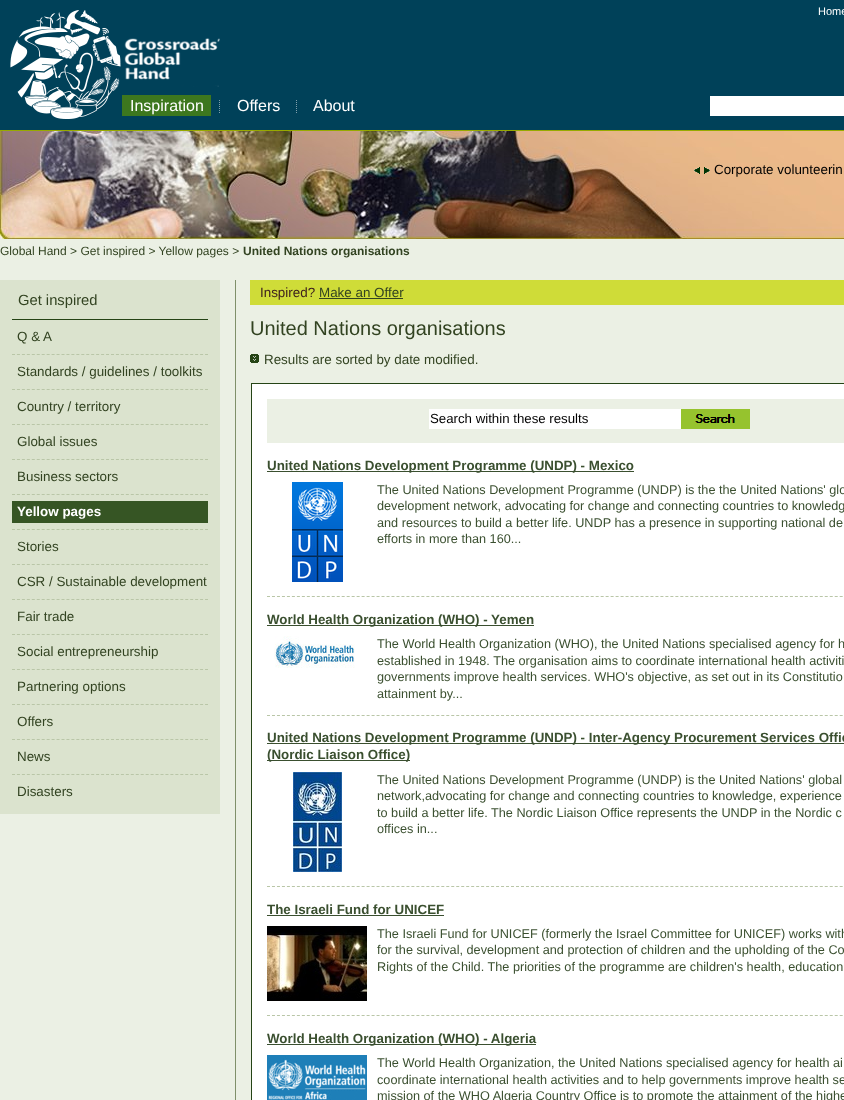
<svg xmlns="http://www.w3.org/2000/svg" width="844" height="1100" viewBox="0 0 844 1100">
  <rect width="100%" height="100%" fill="rgb(235,240,228)"/>
  <rect x="0" y="0" width="844" height="130" fill="rgb(0,65,89)"/>
  <rect x="0" y="130" width="844" height="1" fill="rgb(151,169,0)"/>
  <image x="10" y="10" width="210" height="109" href="pic1.png"/>
  <text x="818" y="15" font-family="Liberation Sans" font-size="11" fill="rgb(255,255,255)">Home</text>
  <rect x="122" y="95" width="89" height="21" fill="rgb(61,119,30)"/>
  <text x="130" y="111" font-family="Liberation Sans" font-size="16" fill="rgb(255,255,255)">Inspiration</text>
  <image x="219" y="100" width="1" height="13" href="pic2.png"/>
  <text x="237" y="111" font-family="Liberation Sans" font-size="16" fill="rgb(255,255,255)">Offers</text>
  <image x="296" y="100" width="1" height="13" href="pic2.png"/>
  <text x="313" y="111" font-family="Liberation Sans" font-size="16" fill="rgb(255,255,255)">About</text>
  <rect x="710" y="96" width="134" height="20" fill="rgb(255,255,255)"/>
  <image x="0" y="131" width="844" height="108" href="pic3.png"/>
  <image x="694" y="167" width="6" height="7" href="pic4.png"/>
  <image x="704" y="167" width="6" height="7" href="pic5.png"/>
  <text x="714" y="174" font-family="Liberation Sans" font-size="13.4" fill="rgb(0,0,0)">Corporate volunteerin</text>
  <text x="0" y="255" font-family="Liberation Sans" font-size="12" fill="rgb(50,67,33)">Global Hand &gt; Get inspired &gt; Yellow pages &gt;</text>
  <text x="243" y="255" font-family="Liberation Sans" font-size="12" font-weight="bold" fill="rgb(50,67,33)">United Nations organisations</text>
  <rect x="235" y="280" width="1" height="820" fill="rgb(127,144,106)"/>
  <rect x="0" y="280" width="220" height="534" fill="rgb(219,227,206)"/>
  <rect x="12" y="319" width="196" height="1" fill="rgb(37,68,21)"/>
  <text x="18" y="305" font-family="Liberation Sans" font-size="14.75" fill="rgb(50,67,33)">Get inspired</text>
  <path d="M12 354.5H208" fill="none" stroke="rgb(185,198,167)" stroke-dasharray="3 1.95"/>
  <text x="17" y="341" font-family="Liberation Sans" font-size="13.4" fill="rgb(50,67,33)">Q &amp; A</text>
  <path d="M12 389.5H208" fill="none" stroke="rgb(185,198,167)" stroke-dasharray="3 1.95"/>
  <text x="17" y="376" font-family="Liberation Sans" font-size="13.4" fill="rgb(50,67,33)">Standards / guidelines / toolkits</text>
  <path d="M12 424.5H208" fill="none" stroke="rgb(185,198,167)" stroke-dasharray="3 1.95"/>
  <text x="17" y="411" font-family="Liberation Sans" font-size="13.4" fill="rgb(50,67,33)">Country / territory</text>
  <path d="M12 459.5H208" fill="none" stroke="rgb(185,198,167)" stroke-dasharray="3 1.95"/>
  <text x="17" y="446" font-family="Liberation Sans" font-size="13.4" fill="rgb(50,67,33)">Global issues</text>
  <path d="M12 494.5H208" fill="none" stroke="rgb(185,198,167)" stroke-dasharray="3 1.95"/>
  <text x="17" y="481" font-family="Liberation Sans" font-size="13.4" fill="rgb(50,67,33)">Business sectors</text>
  <path d="M12 529.5H208" fill="none" stroke="rgb(185,198,167)" stroke-dasharray="3 1.95"/>
  <rect x="12" y="501" width="196" height="22" fill="rgb(54,85,36)"/>
  <text x="17" y="516" font-family="Liberation Sans" font-size="13.4" font-weight="bold" fill="rgb(255,255,255)">Yellow pages</text>
  <path d="M12 564.5H208" fill="none" stroke="rgb(185,198,167)" stroke-dasharray="3 1.95"/>
  <text x="17" y="551" font-family="Liberation Sans" font-size="13.4" fill="rgb(50,67,33)">Stories</text>
  <path d="M12 599.5H208" fill="none" stroke="rgb(185,198,167)" stroke-dasharray="3 1.95"/>
  <text x="17" y="586" font-family="Liberation Sans" font-size="13.4" fill="rgb(50,67,33)">CSR / Sustainable development</text>
  <path d="M12 634.5H208" fill="none" stroke="rgb(185,198,167)" stroke-dasharray="3 1.95"/>
  <text x="17" y="621" font-family="Liberation Sans" font-size="13.4" fill="rgb(50,67,33)">Fair trade</text>
  <path d="M12 669.5H208" fill="none" stroke="rgb(185,198,167)" stroke-dasharray="3 1.95"/>
  <text x="17" y="656" font-family="Liberation Sans" font-size="13.4" fill="rgb(50,67,33)">Social entrepreneurship</text>
  <path d="M12 704.5H208" fill="none" stroke="rgb(185,198,167)" stroke-dasharray="3 1.95"/>
  <text x="17" y="691" font-family="Liberation Sans" font-size="13.4" fill="rgb(50,67,33)">Partnering options</text>
  <path d="M12 739.5H208" fill="none" stroke="rgb(185,198,167)" stroke-dasharray="3 1.95"/>
  <text x="17" y="726" font-family="Liberation Sans" font-size="13.4" fill="rgb(50,67,33)">Offers</text>
  <path d="M12 774.5H208" fill="none" stroke="rgb(185,198,167)" stroke-dasharray="3 1.95"/>
  <g font-family="Liberation Sans" font-size="13.4" fill="rgb(50,67,33)">
    <text x="17" y="761">News</text>
    <text x="17" y="796">Disasters</text>
  </g>
  <rect x="250" y="280" width="594" height="25" fill="rgb(207,220,56)"/>
  <text x="260" y="297" font-family="Liberation Sans" font-size="13.4" fill="rgb(62,34,30)">Inspired?</text>
  <text x="319" y="297" font-family="Liberation Sans" font-size="13.4" fill="rgb(50,67,33)">Make an Offer</text>
  <rect x="319" y="298" width="84" height="1" fill="rgb(50,67,33)"/>
  <text x="250" y="335" font-family="Liberation Sans" font-size="20" fill="rgb(50,67,33)">United Nations organisations</text>
  <image x="250" y="354" width="9" height="9" href="pic6.png"/>
  <text x="264" y="364" font-family="Liberation Sans" font-size="13.4" fill="rgb(50,67,33)">Results are sorted by date modified.</text>
  <rect x="251.5" y="383.5" width="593" height="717" fill="rgb(255,255,255)" stroke="rgb(37,68,21)"/>
  <rect x="267" y="399" width="577" height="44" fill="rgb(235,240,228)"/>
  <rect x="429" y="409" width="252" height="20" fill="rgb(255,255,255)"/>
  <text x="430" y="423" font-family="Liberation Sans" font-size="13.25" fill="rgb(0,0,0)">Search within these results</text>
  <image x="681" y="409" width="69" height="20" href="pic7.png"/>
  <path d="M267 596.5H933" fill="none" stroke="rgb(185,198,167)" stroke-dasharray="3 1.98"/>
  <rect x="267" y="471" width="367" height="1" fill="rgb(58,79,47)"/>
  <text x="267" y="470" font-family="Liberation Sans" font-size="13.35" font-weight="bold" fill="rgb(58,79,47)">United Nations Development Programme (UNDP) - Mexico</text>
  <image x="292" y="482" width="51" height="100" href="pic8.png"/>
  <g font-family="Liberation Sans" font-size="12.7" fill="rgb(58,79,47)">
    <text>
      <tspan x="377" y="494">The United Nations Development Programme (UNDP) is the the United Nations' glo</tspan>
      <tspan x="377" y="510">development network, advocating for change and connecting countries to knowledg</tspan>
      <tspan x="377" y="527">and resources to build a better life. UNDP has a presence in supporting national de</tspan>
      <tspan x="377" y="543">efforts in more than 160...</tspan>
    </text>
  </g>
  <path d="M267 715.5H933" fill="none" stroke="rgb(185,198,167)" stroke-dasharray="3 1.98"/>
  <rect x="267" y="625" width="267" height="1" fill="rgb(58,79,47)"/>
  <text x="267" y="624" font-family="Liberation Sans" font-size="13.35" font-weight="bold" fill="rgb(58,79,47)">World Health Organization (WHO) - Yemen</text>
  <image x="274" y="636" width="81" height="32" href="pic9.png"/>
  <g font-family="Liberation Sans" font-size="12.7" fill="rgb(58,79,47)">
    <text>
      <tspan x="377" y="648">The World Health Organization (WHO), the United Nations specialised agency for h</tspan>
      <tspan x="377" y="665">established in 1948. The organisation aims to coordinate international health activiti</tspan>
      <tspan x="377" y="681">governments improve health services. WHO's objective, as set out in its Constitutio</tspan>
      <tspan x="377" y="698">attainment by...</tspan>
    </text>
  </g>
  <path d="M267 886.5H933" fill="none" stroke="rgb(185,198,167)" stroke-dasharray="3 1.98"/>
  <rect x="267" y="743" width="577" height="1" fill="rgb(58,79,47)"/>
  <text x="267" y="742" font-family="Liberation Sans" font-size="13.35" font-weight="bold" fill="rgb(58,79,47)">United Nations Development Programme (UNDP) - Inter-Agency Procurement Services Offic</text>
  <rect x="267" y="760" width="143" height="1" fill="rgb(58,79,47)"/>
  <text x="267" y="759" font-family="Liberation Sans" font-size="13.35" font-weight="bold" fill="rgb(58,79,47)">(Nordic Liaison Office)</text>
  <image x="293" y="772" width="49" height="100" href="pic10.png"/>
  <g font-family="Liberation Sans" font-size="12.7" fill="rgb(58,79,47)">
    <text>
      <tspan x="377" y="784">The United Nations Development Programme (UNDP) is the United Nations' global</tspan>
      <tspan x="377" y="800">network,advocating for change and connecting countries to knowledge, experience</tspan>
      <tspan x="377" y="817">to build a better life. The Nordic Liaison Office represents the UNDP in the Nordic c</tspan>
      <tspan x="377" y="833">offices in...</tspan>
    </text>
  </g>
  <path d="M267 1015.5H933" fill="none" stroke="rgb(185,198,167)" stroke-dasharray="3 1.98"/>
  <text x="267" y="914" font-family="Liberation Sans" font-size="13.35" font-weight="bold" fill="rgb(58,79,47)">The Israeli Fund for UNICEF</text>
  <rect x="267" y="915" width="177" height="1" fill="rgb(58,79,47)"/>
  <image x="267" y="926" width="100" height="75" href="pic11.png"/>
  <g font-family="Liberation Sans" font-size="12.7" fill="rgb(58,79,47)">
    <text>
      <tspan x="377" y="938">The Israeli Fund for UNICEF (formerly the Israel Committee for UNICEF) works with</tspan>
      <tspan x="377" y="954">for the survival, development and protection of children and the upholding of the Co</tspan>
      <tspan x="377" y="971">Rights of the Child. The priorities of the programme are children's health, education</tspan>
    </text>
  </g>
  <rect x="267" y="1044" width="269" height="1" fill="rgb(58,79,47)"/>
  <text x="267" y="1043" font-family="Liberation Sans" font-size="13.35" font-weight="bold" fill="rgb(58,79,47)">World Health Organization (WHO) - Algeria</text>
  <image x="267" y="1055" width="100" height="45" href="pic12.png"/>
  <g font-family="Liberation Sans" font-size="12.7" fill="rgb(58,79,47)">
    <text>
      <tspan x="377" y="1067">The World Health Organization, the United Nations specialised agency for health ai</tspan>
      <tspan x="377" y="1084">coordinate international health activities and to help governments improve health se</tspan>
      <tspan x="377" y="1100">mission of the WHO Algeria Country Office is to promote the attainment of the highe</tspan>
    </text>
  </g>
</svg>
